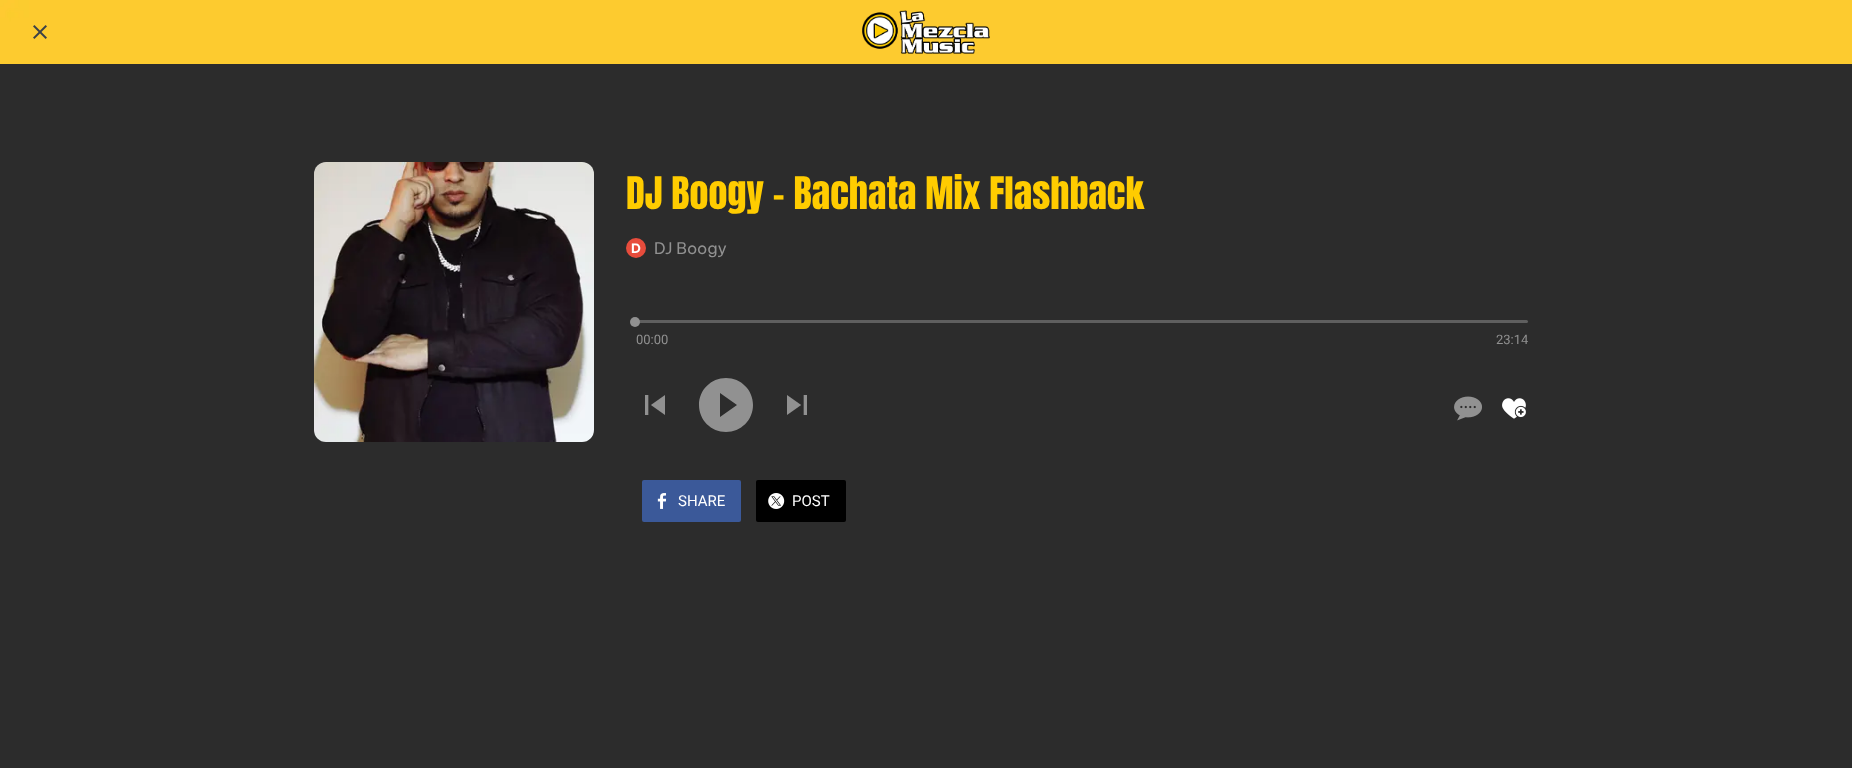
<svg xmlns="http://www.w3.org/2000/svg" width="1852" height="768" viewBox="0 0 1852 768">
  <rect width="100%" height="100%" fill="rgb(44,44,44)"/>
  <image x="0" y="0" width="1852" height="64" href="pic1.png"/>
  <image x="33" y="25" width="14" height="14" href="pic2.png"/>
  <image x="862" y="10" width="128" height="44" href="pic3.png"/>
  <image x="314" y="162" width="280" height="280" href="pic4.png"/>
  <text x="626" y="209" font-family="Anton" font-size="38" fill="rgb(255,204,0)">DJ Boogy - Bachata Mix Flashback</text>
  <circle cx="636" cy="248" r="10" fill="rgb(231,76,60)"/>
  <text x="631" y="253" font-family="Be Vietnam Pro" font-size="13" font-weight="bold" fill="rgb(255,255,255)">D</text>
  <text x="654" y="254" font-family="Be Vietnam Pro" font-size="16" fill="rgb(145,145,145)">DJ Boogy</text>
  <rect x="636" y="320" width="892" height="3" rx="1.5" fill="rgb(95,95,95)"/>
  <circle cx="635" cy="322" r="5" fill="rgb(145,145,145)"/>
  <g font-family="Roboto" font-size="13" fill="rgb(145,145,145)">
    <text x="636" y="344">00:00</text>
    <text x="1496" y="344">23:14</text>
  </g>
  <image x="645" y="395" width="20" height="20" href="pic5.png"/>
  <path d="M726 378C711 378 699 390 699 405C699 420 711 432 726 432C741 432 753 420 753 405C753 390 741 378 726 378ZM720 417V393L737 405Z" fill="rgb(145,145,145)"/>
  <image x="787" y="395" width="20" height="20" href="pic6.png"/>
  <image x="1454" y="396" width="28" height="25" href="pic7.png"/>
  <image x="1502" y="398" width="24" height="21" href="pic8.png"/>
  <rect x="642" y="480" width="99" height="42" rx="2" fill="rgb(59,89,153)"/>
  <image x="657" y="493" width="10" height="16" href="pic9.png"/>
  <text x="678" y="506" font-family="Roboto" font-size="15" fill="rgb(255,255,255)">SHARE</text>
  <rect x="756" y="480" width="90" height="42" rx="2" fill="rgb(0,0,0)"/>
  <image x="768" y="493" width="17" height="16" href="pic10.png"/>
  <text x="792" y="506" font-family="Roboto" font-size="15" fill="rgb(255,255,255)">POST</text>
</svg>
